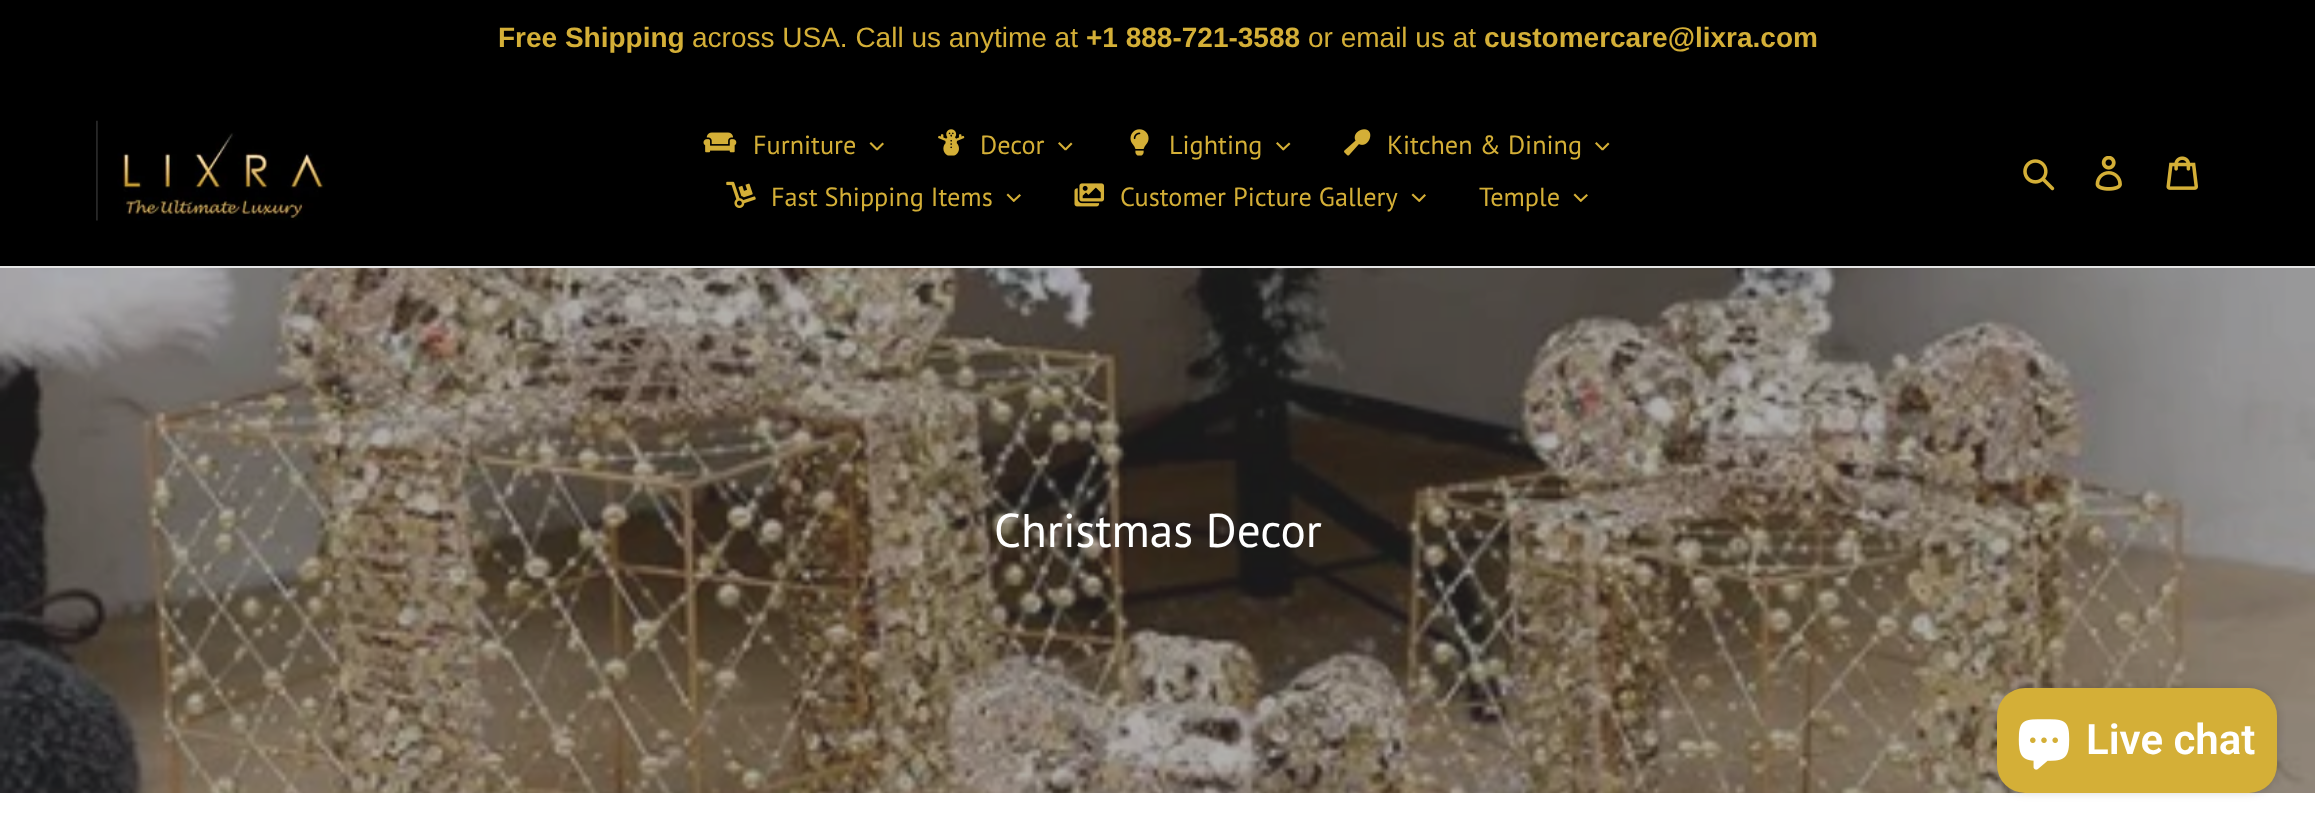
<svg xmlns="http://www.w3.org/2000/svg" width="2315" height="828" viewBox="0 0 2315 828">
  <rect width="100%" height="100%" fill="rgb(255,255,255)"/>
  <rect x="0" y="0" width="2315" height="266" fill="rgb(0,0,0)"/>
  <text x="498" y="47" font-family="Liberation Sans" font-size="28" font-weight="bold" fill="rgb(212,175,55)">Free Shipping</text>
  <text x="692" y="47" font-family="Liberation Sans" font-size="28" fill="rgb(212,175,55)">across USA. Call us anytime at</text>
  <text x="1086" y="47" font-family="Liberation Sans" font-size="28" font-weight="bold" fill="rgb(212,175,55)">+1 888-721-3588</text>
  <text x="1308" y="47" font-family="Liberation Sans" font-size="28" fill="rgb(212,175,55)">or email us at</text>
  <text x="1484" y="47" font-family="Liberation Sans" font-size="28" font-weight="bold" fill="rgb(212,175,55)">customercare@lixra.com</text>
  <rect x="0" y="266" width="2315" height="2" fill="rgb(228,228,228)"/>
  <image x="96" y="120" width="229" height="101" href="pic1.png"/>
  <image x="703" y="132" width="34" height="21" href="pic2.png"/>
  <text x="753" y="154" font-family="PT Sans" font-size="26.25" fill="rgb(212,175,55)">Furniture</text>
  <path d="M882.5 142.5L884 144L877.5 150.5L876 149Z" fill="rgb(212,175,55)"/>
  <path d="M871 142L878 149L876.5 150.5L869.5 143.5Z" fill="rgb(212,175,55)"/>
  <image x="938" y="129" width="27" height="27" href="pic3.png"/>
  <text x="980" y="154" font-family="PT Sans" font-size="26.25" fill="rgb(212,175,55)">Decor</text>
  <path d="M1071 142.5L1072.5 144L1066 150.5L1064.5 149Z" fill="rgb(212,175,55)"/>
  <path d="M1059.5 142L1066.5 149L1065 150.5L1058 143.5Z" fill="rgb(212,175,55)"/>
  <image x="1130" y="129" width="19" height="27" href="pic4.png"/>
  <text x="1169" y="154" font-family="PT Sans" font-size="26.25" fill="rgb(212,175,55)">Lighting</text>
  <path d="M1289 142.5L1290.5 144L1283.5 150.5L1282 149Z" fill="rgb(212,175,55)"/>
  <path d="M1277.5 142L1284.5 149L1283 150.5L1276 143.5Z" fill="rgb(212,175,55)"/>
  <image x="1344" y="129" width="27" height="27" href="pic5.png"/>
  <text x="1387" y="154" font-family="PT Sans" font-size="26.25" fill="rgb(212,175,55)">Kitchen &amp; Dining</text>
  <path d="M1608 142.5L1609.5 144L1603 150.5L1601.5 149Z" fill="rgb(212,175,55)"/>
  <path d="M1596.5 142L1603.5 149L1602 150.5L1595 143.5Z" fill="rgb(212,175,55)"/>
  <image x="726" y="181" width="30" height="27" href="pic6.png"/>
  <text x="771" y="206" font-family="PT Sans" font-size="26.25" fill="rgb(212,175,55)">Fast Shipping Items</text>
  <path d="M1019.5 194L1021 195.5L1014 202L1012.5 200.5Z" fill="rgb(212,175,55)"/>
  <path d="M1008 193.5L1015 200.5L1013.5 202L1006.5 195Z" fill="rgb(212,175,55)"/>
  <image x="1074" y="183" width="31" height="24" href="pic7.png"/>
  <text x="1120" y="206" font-family="PT Sans" font-size="26.25" fill="rgb(212,175,55)">Customer Picture Gallery</text>
  <path d="M1424.5 194L1426 195.5L1419.5 202L1418 200.5Z" fill="rgb(212,175,55)"/>
  <path d="M1413 193.5L1420.5 200.5L1419 202L1411.5 195Z" fill="rgb(212,175,55)"/>
  <text x="1479" y="206" font-family="PT Sans" font-size="26.25" fill="rgb(212,175,55)">Temple</text>
  <path d="M1586.5 194L1588 195.5L1581 202L1579.5 200.5Z" fill="rgb(212,175,55)"/>
  <path d="M1575 193.5L1582 200.5L1580.5 202L1573.5 195Z" fill="rgb(212,175,55)"/>
  <image x="2023" y="159" width="32" height="32" href="pic8.png"/>
  <image x="2095" y="156" width="27" height="35" href="pic9.png"/>
  <image x="2166" y="156" width="32" height="34" href="pic10.png"/>
  <image x="0" y="268" width="2315" height="525" href="pic11.png"/>
  <text x="994" y="547" font-family="PT Sans" font-size="47.25" fill="rgb(255,255,255)">Christmas Decor</text>
  <rect x="1997" y="688" width="280" height="105" rx="28" fill="rgba(0,0,0,0.15)" filter="blur(4.5px)"/>
  <rect x="1997" y="688" width="280" height="105" rx="28" fill="rgb(212,175,55)"/>
  <image x="2018" y="719" width="52" height="51" href="pic12.png"/>
  <text x="2086" y="754" font-family="Roboto" font-size="42" font-weight="600" fill="rgb(255,255,255)">Live chat</text>
</svg>
